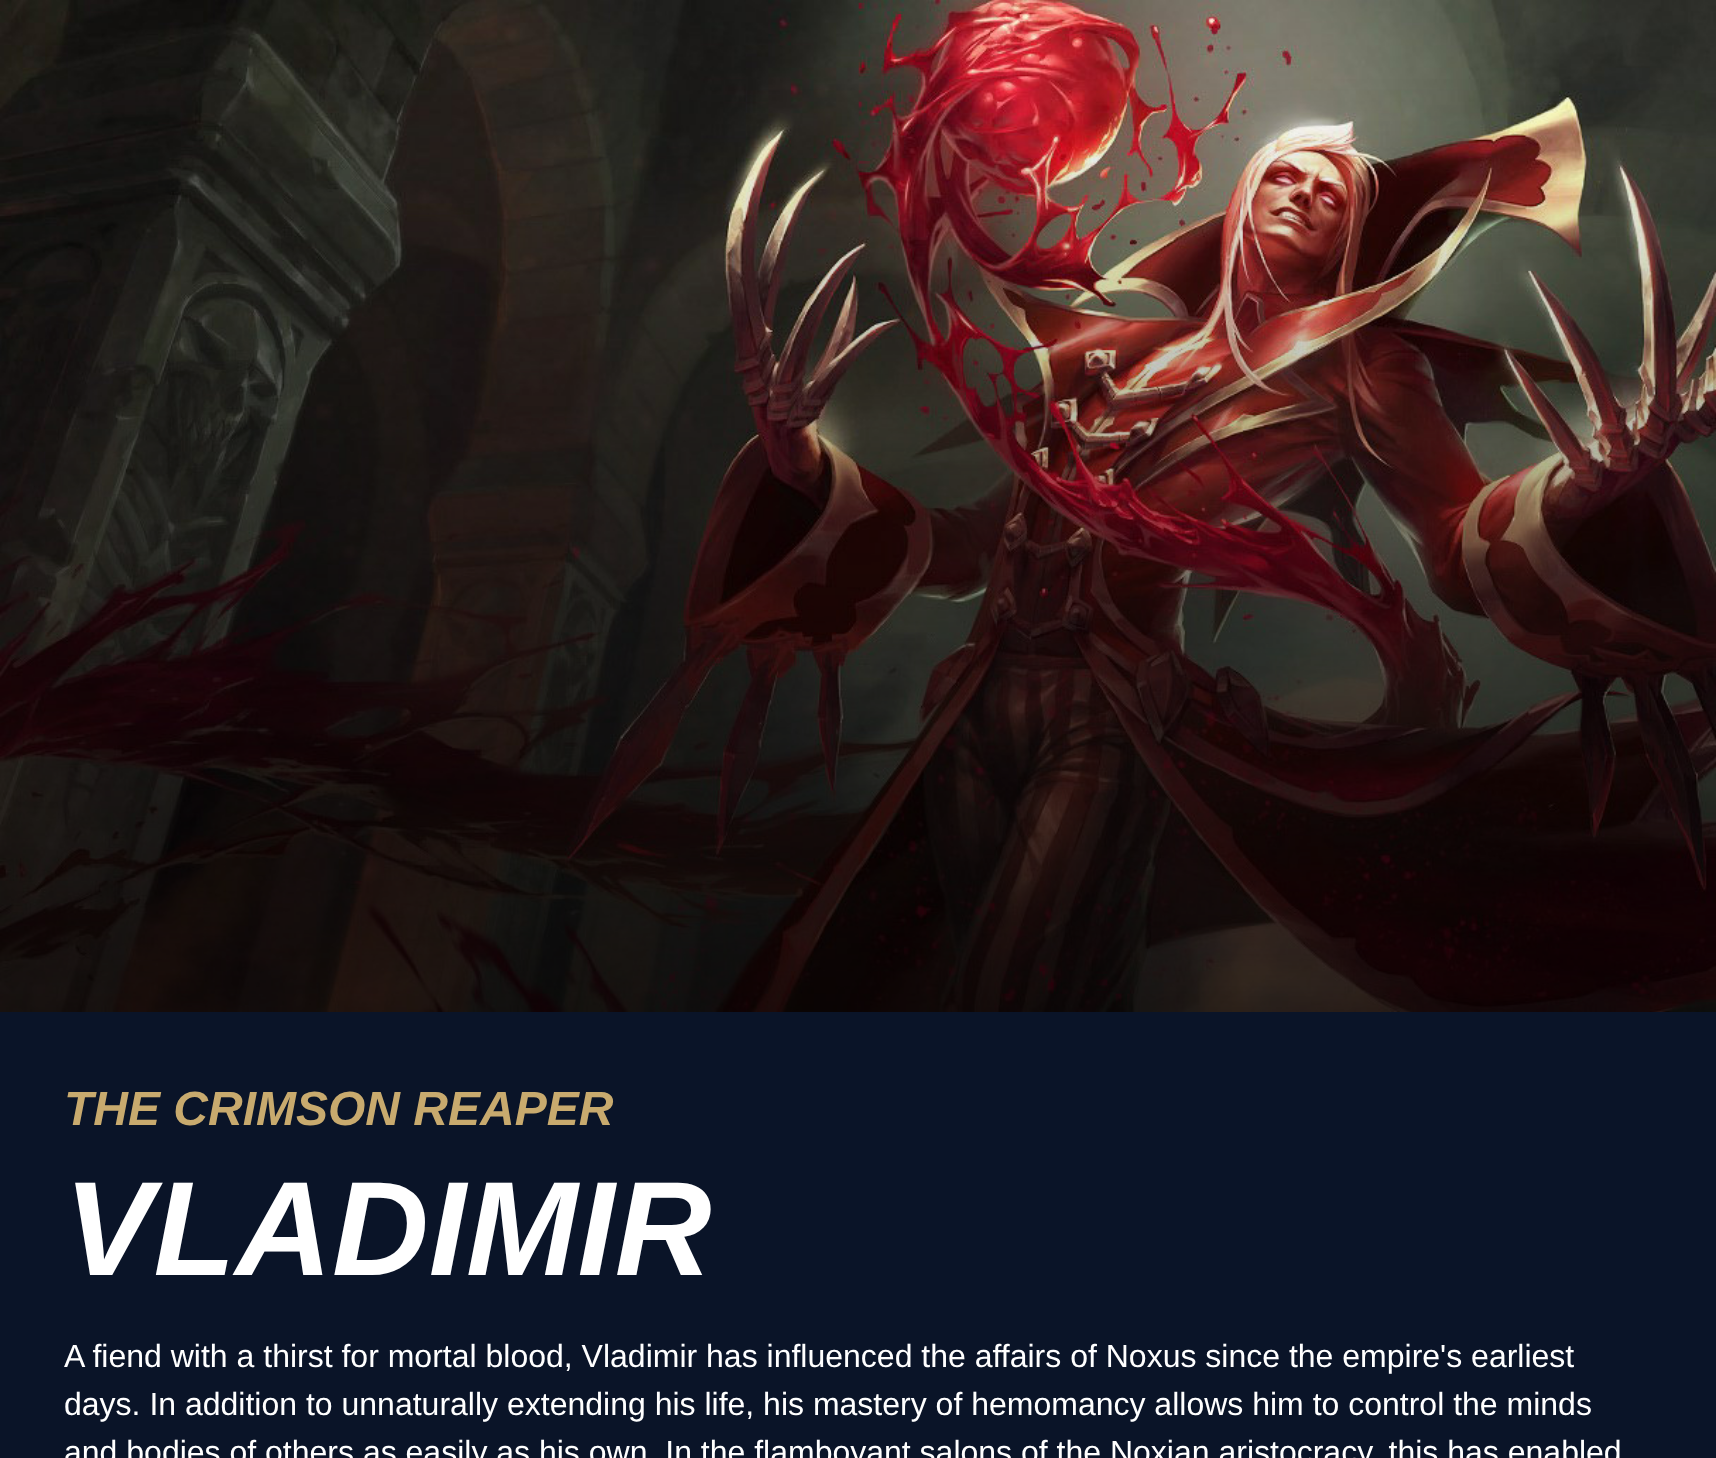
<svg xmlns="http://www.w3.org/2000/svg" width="1716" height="1458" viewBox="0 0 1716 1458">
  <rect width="100%" height="100%" fill="rgb(10,20,40)"/>
  <image x="0" y="0" width="1716" height="1012" href="pic1.png"/>
  <text x="64" y="1125" font-family="Liberation Sans" font-size="48" font-weight="bold" font-style="italic" fill="rgb(200,170,110)">THE CRIMSON REAPER</text>
  <text x="64" y="1275" font-family="Liberation Sans" font-size="134" font-weight="bold" font-style="italic" fill="rgb(255,255,255)">VLADIMIR</text>
  <g font-family="Liberation Sans" font-size="32" fill="rgb(255,255,255)">
    <text>
      <tspan x="64" y="1367">A fiend with a thirst for mortal blood, Vladimir has influenced the affairs of Noxus since the empire's earliest</tspan>
      <tspan x="64" y="1415">days. In addition to unnaturally extending his life, his mastery of hemomancy allows him to control the minds</tspan>
      <tspan x="64" y="1463">and bodies of others as easily as his own. In the flamboyant salons of the Noxian aristocracy, this has enabled</tspan>
    </text>
  </g>
</svg>
